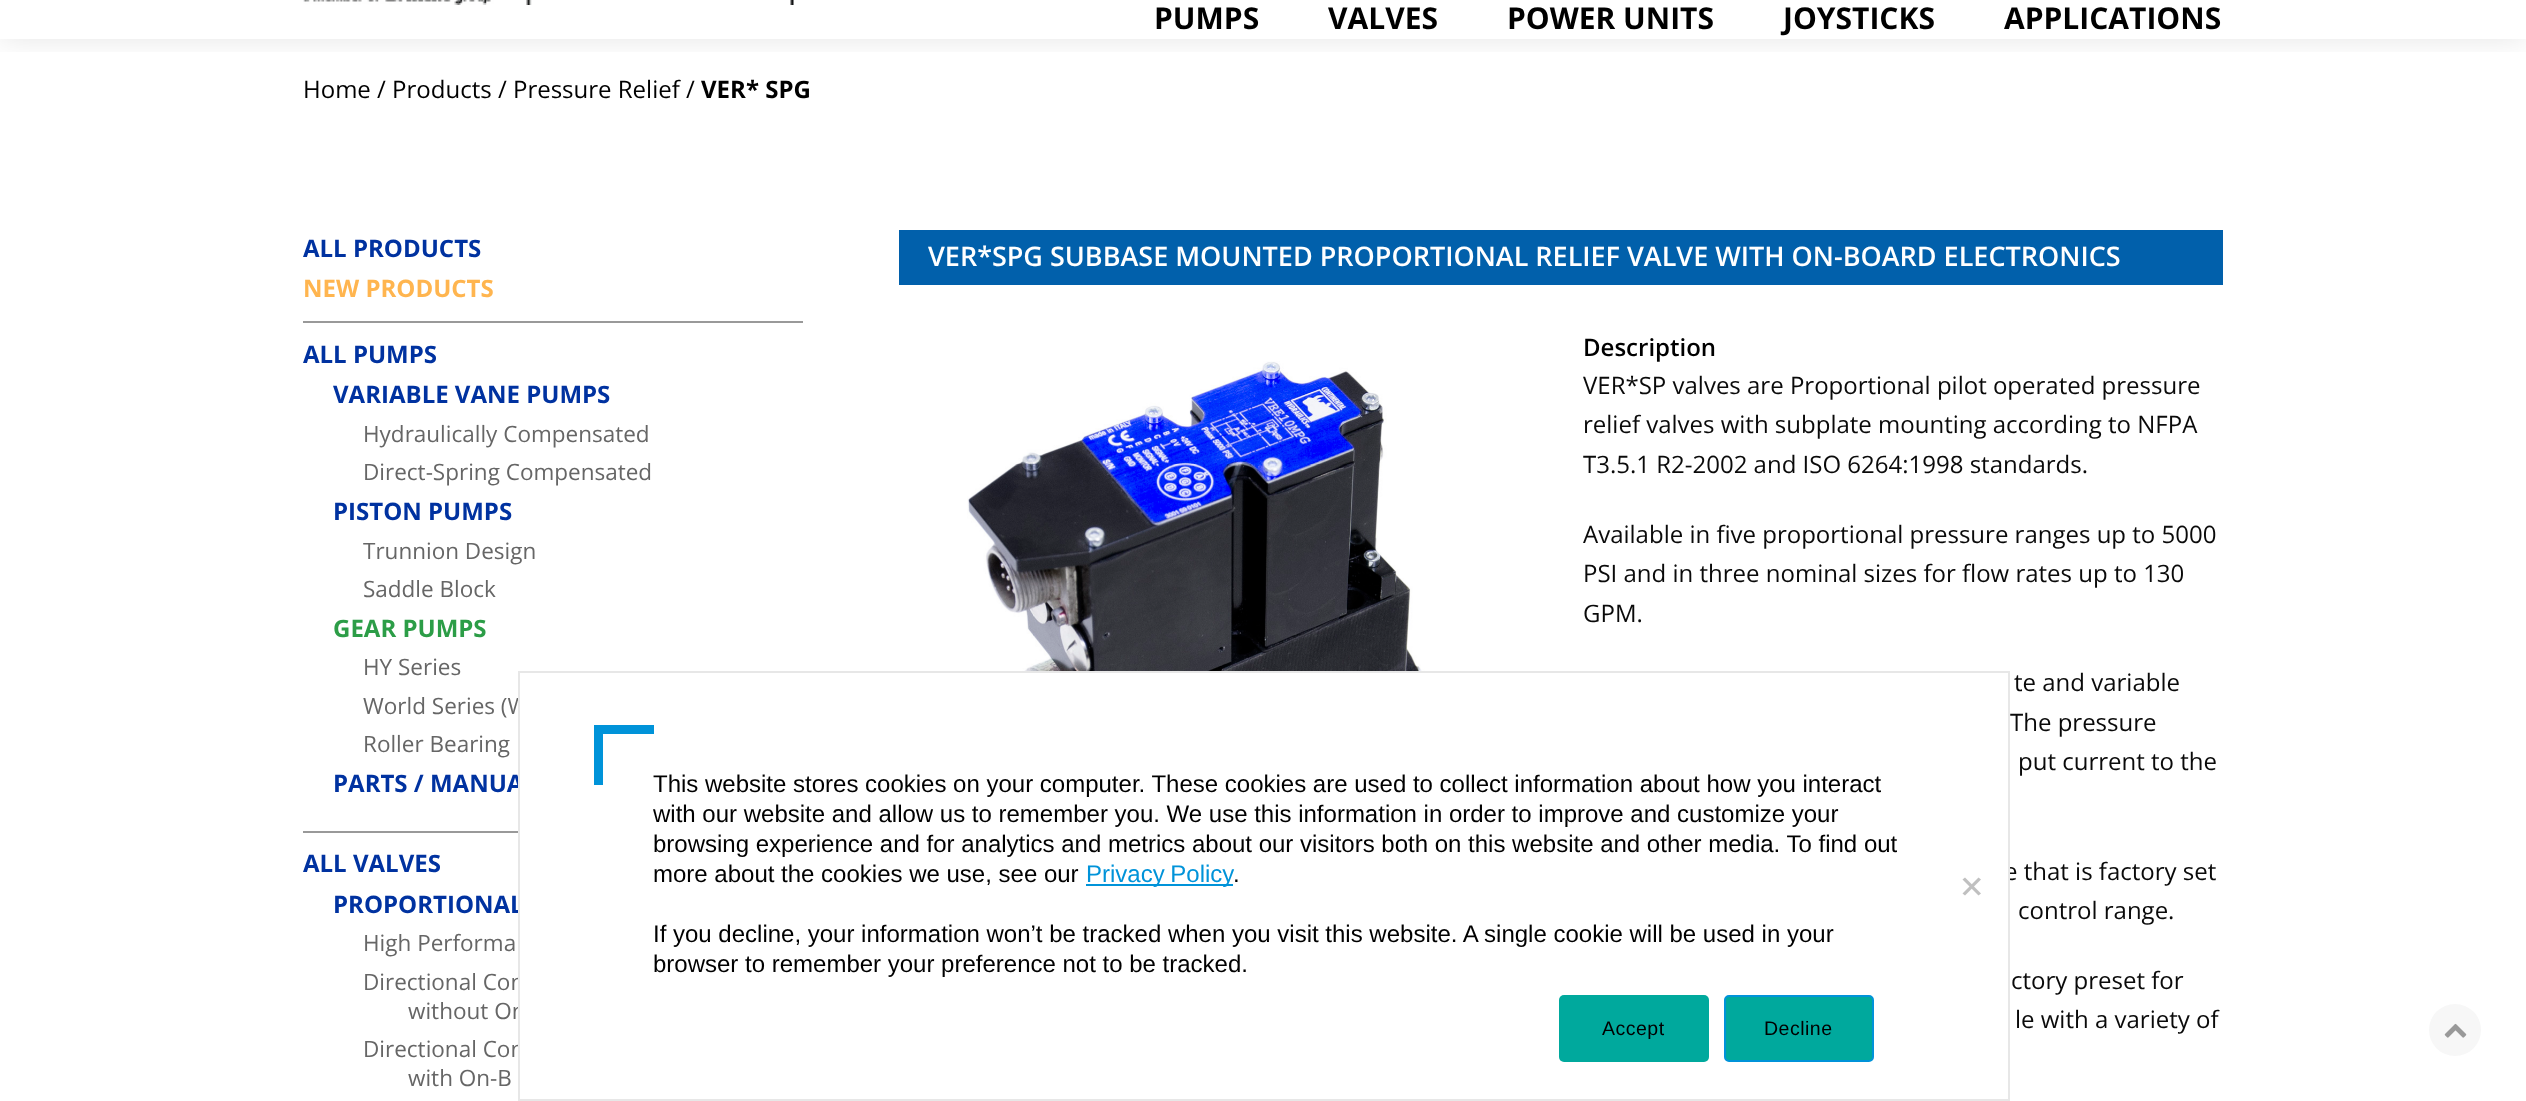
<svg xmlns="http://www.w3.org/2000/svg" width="2526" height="1101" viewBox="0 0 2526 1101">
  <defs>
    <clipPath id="clip1"><rect x="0" y="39" width="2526" height="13"/></clipPath>
  </defs>
  <rect width="100%" height="100%" fill="rgb(255,255,255)"/>
  <g clip-path="url(#clip1)">
    <rect x="0" y="0" width="2526" height="39" fill="rgba(0,0,0,0.1)" filter="blur(15px)"/>
  </g>
  <image x="303" y="0" width="491" height="5" href="pic1.png"/>
  <g font-family="Open Sans" font-size="30" font-weight="bold" fill="rgb(0,0,0)">
    <text x="1154" y="29">PUMPS</text>
    <text x="1328" y="29">VALVES</text>
    <text x="1507" y="29">POWER UNITS</text>
    <text x="1783" y="29">JOYSTICKS</text>
    <text x="2004" y="29">APPLICATIONS</text>
  </g>
  <text x="303" y="98" font-family="Open Sans" font-size="24" fill="rgb(0,0,0)">Home / Products / Pressure Relief /</text>
  <text x="701" y="98" font-family="Open Sans" font-size="24" font-weight="bold" fill="rgb(0,0,0)">VER* SPG</text>
  <text x="303" y="257" font-family="Open Sans" font-size="24" font-weight="bold" fill="rgb(0,50,160)">ALL PRODUCTS</text>
  <rect x="303" y="321" width="500" height="2" fill="rgb(153,153,153)"/>
  <text x="303" y="297" font-family="Open Sans" font-size="24" font-weight="bold" fill="rgb(255,181,79)">NEW PRODUCTS</text>
  <rect x="303" y="831" width="215" height="2" fill="rgb(153,153,153)"/>
  <g font-family="Open Sans" font-size="24" font-weight="bold" fill="rgb(0,50,160)">
    <text x="303" y="363">ALL PUMPS</text>
    <text x="333" y="403">VARIABLE VANE PUMPS</text>
  </g>
  <g font-family="Open Sans" font-size="22.5" fill="rgb(102,102,102)">
    <text>
      <tspan x="363" y="442">Hydraulically Compensated</tspan>
      <tspan x="363" y="480">Direct-Spring Compensated</tspan>
    </text>
  </g>
  <text x="333" y="520" font-family="Open Sans" font-size="24" font-weight="bold" fill="rgb(0,50,160)">PISTON PUMPS</text>
  <g font-family="Open Sans" font-size="22.5" fill="rgb(102,102,102)">
    <text>
      <tspan x="363" y="559">Trunnion Design</tspan>
      <tspan x="363" y="597">Saddle Block</tspan>
    </text>
  </g>
  <text x="333" y="637" font-family="Open Sans" font-size="24" font-weight="bold" fill="rgb(44,157,71)">GEAR PUMPS</text>
  <g font-family="Open Sans" font-size="22.5" fill="rgb(102,102,102)">
    <text>
      <tspan x="363" y="675">HY Series</tspan>
      <tspan x="363" y="714">World Series (W</tspan>
      <tspan x="363" y="752">Roller Bearing</tspan>
    </text>
  </g>
  <g font-family="Open Sans" font-size="24" font-weight="bold" fill="rgb(0,50,160)">
    <text x="333" y="792">PARTS / MANUA</text>
    <text x="303" y="872">ALL VALVES</text>
    <text x="333" y="913">PROPORTIONAL</text>
  </g>
  <g font-family="Open Sans" font-size="22.5" fill="rgb(102,102,102)">
    <text>
      <tspan x="363" y="951">High Performa</tspan>
      <tspan x="363" y="990">Directional Con</tspan>
    </text>
    <text x="408" y="1019">without On</text>
    <text x="363" y="1057">Directional Con</text>
    <text x="408" y="1086">with On-B</text>
  </g>
  <rect x="899" y="230" width="1324" height="55" fill="rgb(1,96,171)"/>
  <text x="928" y="266" font-family="Open Sans" font-size="27" font-weight="600" fill="rgb(255,255,255)">VER*SPG SUBBASE MOUNTED PROPORTIONAL RELIEF VALVE WITH ON-BOARD ELECTRONICS</text>
  <image x="967" y="361" width="488" height="310" href="pic2.png"/>
  <text x="1583" y="356" font-family="Open Sans" font-size="24" font-weight="600" fill="rgb(0,0,0)">Description</text>
  <g font-family="Open Sans" font-size="24" fill="rgb(10,10,10)">
    <text>
      <tspan x="1583" y="394">VER*SP valves are Proportional pilot operated pressure</tspan>
      <tspan x="1583" y="433">relief valves with subplate mounting according to NFPA</tspan>
      <tspan x="1583" y="473">T3.5.1 R2-2002 and ISO 6264:1998 standards.</tspan>
    </text>
    <text>
      <tspan x="1583" y="543">Available in five proportional pressure ranges up to 5000</tspan>
      <tspan x="1583" y="582">PSI and in three nominal sizes for flow rates up to 130</tspan>
      <tspan x="1583" y="622">GPM.</tspan>
    </text>
    <text x="2014" y="691">te and variable</text>
    <text x="2010" y="731">The pressure</text>
    <text x="2018" y="770">put current to the</text>
    <text x="2004" y="880">e that is factory set</text>
    <text x="2018" y="919">control range.</text>
    <text x="2011" y="989">ctory preset for</text>
    <text x="2015" y="1028">le with a variety of</text>
  </g>
  <rect x="520" y="697" width="1488" height="360" fill="rgb(255,255,255)"/>
  <rect x="519" y="672" width="1490" height="428" fill="none" stroke="rgb(231,231,231)" stroke-width="2"/>
  <rect x="594" y="725" width="9" height="60" fill="rgb(0,147,217)"/>
  <rect x="603" y="725" width="51" height="9" fill="rgb(0,147,217)"/>
  <g font-family="Liberation Sans" font-size="24" fill="rgb(0,0,0)">
    <text>
      <tspan x="653" y="792">This website stores cookies on your computer. These cookies are used to collect information about how you interact</tspan>
      <tspan x="653" y="822">with our website and allow us to remember you. We use this information in order to improve and customize your</tspan>
      <tspan x="653" y="852">browsing experience and for analytics and metrics about our visitors both on this website and other media. To find out</tspan>
      <tspan x="653" y="882">more about the cookies we use, see our</tspan>
    </text>
  </g>
  <rect x="1086" y="884" width="147" height="2" fill="rgb(0,147,217)"/>
  <text x="1086" y="882" word-spacing="-1" font-family="Liberation Sans" font-size="24" fill="rgb(0,147,217)">Privacy Policy</text>
  <g font-family="Liberation Sans" font-size="24" fill="rgb(0,0,0)">
    <text x="1233" y="882">.</text>
    <text>
      <tspan x="653" y="942">If you decline, your information won’t be tracked when you visit this website. A single cookie will be used in your</tspan>
      <tspan x="653" y="972">browser to remember your preference not to be tracked.</tspan>
    </text>
  </g>
  <path d="M1978.5 877.5L1981 879.5L1965 895.5L1962.5 893.5Z" fill="rgb(192,192,192)"/>
  <path d="M1962.5 879.5L1965 877.5L1981 893.5L1978.5 895.5Z" fill="rgb(192,192,192)"/>
  <rect x="1559" y="995" width="150" height="67" rx="5" fill="rgb(0,169,157)"/>
  <text x="1602" y="1035" font-family="Liberation Sans" font-size="19.5" letter-spacing="0.5" fill="rgb(0,0,0)">Accept</text>
  <rect x="1725" y="996" width="148" height="65" rx="4" fill="rgb(0,169,157)" stroke="rgb(0,147,217)" stroke-width="2"/>
  <text x="1764" y="1035" font-family="Liberation Sans" font-size="19.5" letter-spacing="0.5" fill="rgb(0,0,0)">Decline</text>
  <circle cx="2455" cy="1030" r="26" fill="rgb(247,247,247)"/>
  <image x="2444" y="1023" width="23" height="15" href="pic3.png"/>
</svg>
